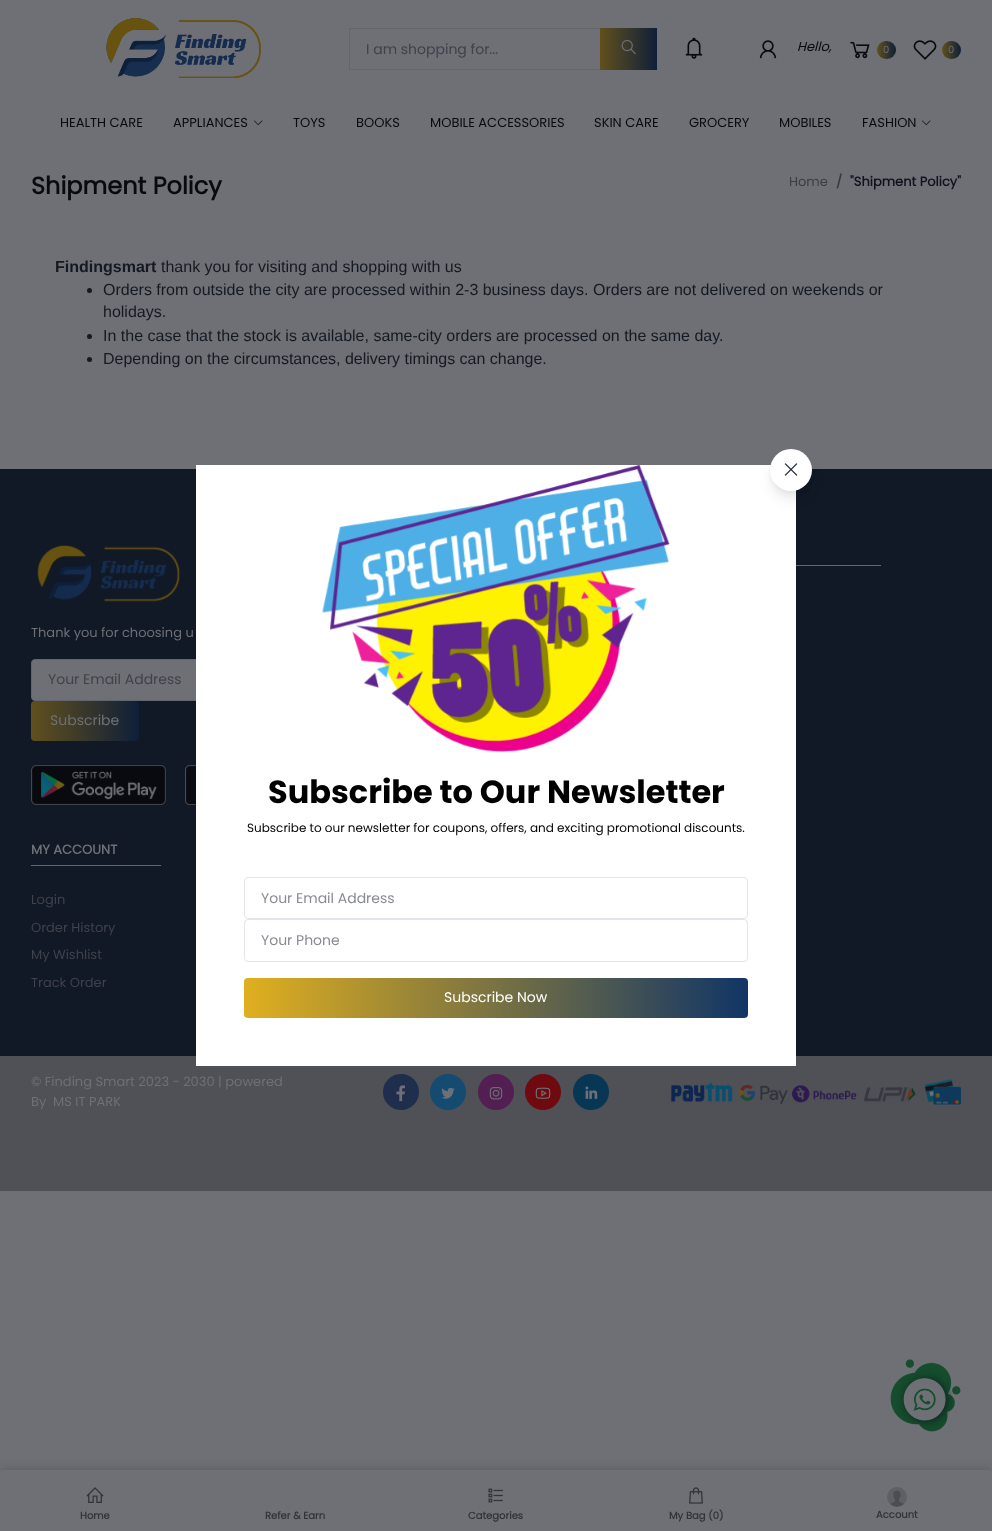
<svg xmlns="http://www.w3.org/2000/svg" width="992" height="1531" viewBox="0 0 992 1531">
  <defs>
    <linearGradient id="g1" gradientUnits="userSpaceOnUse" x1="600" y1="49" x2="657" y2="49"><stop offset="0" stop-color="rgb(97,80,29)"/><stop offset="1" stop-color="rgb(15,31,57)"/></linearGradient>
    <linearGradient id="g2" gradientUnits="userSpaceOnUse" x1="877" y1="50" x2="896" y2="50"><stop offset="0" stop-color="rgb(97,80,29)"/><stop offset="1" stop-color="rgb(15,31,57)"/></linearGradient>
    <linearGradient id="g3" gradientUnits="userSpaceOnUse" x1="942" y1="50" x2="961" y2="50"><stop offset="0" stop-color="rgb(97,80,29)"/><stop offset="1" stop-color="rgb(15,31,57)"/></linearGradient>
    <linearGradient id="g4" gradientUnits="userSpaceOnUse" x1="31" y1="721" x2="139" y2="721"><stop offset="0" stop-color="rgb(97,80,29)"/><stop offset="1" stop-color="rgb(15,31,57)"/></linearGradient>
    <linearGradient id="g5" gradientUnits="userSpaceOnUse" x1="244" y1="998" x2="748" y2="998"><stop offset="0" stop-color="rgb(224,175,31)"/><stop offset="1" stop-color="rgb(17,53,102)"/></linearGradient>
  </defs>
  <rect width="100%" height="100%" fill="rgb(110,112,118)"/>
  <image x="106" y="17" width="155" height="61" href="pic1.png"/>
  <rect x="349.5" y="28.5" width="251" height="41" fill="none" stroke="rgb(98,102,111)"/>
  <text x="366" y="54" font-family="Poppins" font-size="14" fill="rgb(63,66,75)">I am shopping for...</text>
  <rect x="600" y="28" width="57" height="42" fill="url(#g1)"/>
  <image x="621" y="39" width="15" height="16" href="pic2.png"/>
  <image x="685" y="37" width="18" height="22" href="pic3.png"/>
  <image x="759" y="40" width="18" height="19" href="pic4.png"/>
  <text x="797" y="51" font-family="Poppins" font-size="13" font-style="italic" fill="rgb(8,10,16)">Hello,</text>
  <image x="850" y="41" width="20" height="18" href="pic5.png"/>
  <rect x="877" y="41" width="19" height="18" rx="9" fill="url(#g2)"/>
  <text x="883" y="53" font-family="Poppins" font-size="10" fill="rgb(110,112,118)">0</text>
  <image x="913" y="40" width="24" height="20" href="pic6.png"/>
  <rect x="942" y="41" width="19" height="18" rx="9" fill="url(#g3)"/>
  <text x="948" y="53" font-family="Poppins" font-size="10" fill="rgb(110,112,118)">0</text>
  <g font-family="Poppins" font-size="13" fill="rgb(8,10,16)">
    <text x="60" y="127">HEALTH CARE</text>
    <text x="173" y="127">APPLIANCES</text>
  </g>
  <image x="254" y="120" width="9" height="6" href="pic7.png"/>
  <g font-family="Poppins" font-size="13" fill="rgb(8,10,16)">
    <text x="293" y="127">TOYS</text>
    <text x="356" y="127">BOOKS</text>
    <text x="430" y="127">MOBILE ACCESSORIES</text>
    <text x="594" y="127">SKIN CARE</text>
    <text x="689" y="127">GROCERY</text>
    <text x="779" y="127">MOBILES</text>
    <text x="862" y="127">FASHION</text>
  </g>
  <image x="922" y="120" width="9" height="6" href="pic7.png"/>
  <text x="31" y="194" font-family="Poppins" font-size="24" font-weight="bold" fill="rgb(8,10,16)">Shipment Policy</text>
  <text x="789" y="186" font-family="Poppins" font-size="13" fill="rgb(59,61,67)">Home</text>
  <text x="836" y="186" font-family="Poppins" font-size="13" font-weight="bold" fill="rgb(51,57,66)">/</text>
  <text x="850" y="186" font-family="Poppins" font-size="13" font-weight="bold" fill="rgb(15,19,30)">"Shipment Policy"</text>
  <text x="55" y="272" font-family="Liberation Sans" font-size="16" font-weight="bold" fill="rgb(21,25,33)">Findingsmart</text>
  <text x="161" y="272" font-family="Liberation Sans" font-size="16" fill="rgb(21,25,33)">thank you for visiting and shopping with us</text>
  <circle cx="89.5" cy="290.5" r="2.5" fill="rgb(21,25,33)"/>
  <g font-family="Liberation Sans" font-size="16" fill="rgb(21,25,33)">
    <text>
      <tspan x="103" y="295">Orders from outside the city are processed within 2-3 business days. Orders are not delivered on weekends or</tspan>
      <tspan x="103" y="317">holidays.</tspan>
    </text>
  </g>
  <circle cx="89.5" cy="336.5" r="2.5" fill="rgb(21,25,33)"/>
  <text x="103" y="341" font-family="Liberation Sans" font-size="16" fill="rgb(21,25,33)">In the case that the stock is available, same-city orders are processed on the same day.</text>
  <circle cx="89.5" cy="359.5" r="2.5" fill="rgb(21,25,33)"/>
  <text x="103" y="364" font-family="Liberation Sans" font-size="16" fill="rgb(21,25,33)">Depending on the circumstances, delivery timings can change.</text>
  <rect x="0" y="469" width="992" height="587" fill="rgb(17,24,38)"/>
  <rect x="796" y="565" width="85" height="1" fill="rgb(98,102,111)"/>
  <image x="37" y="545" width="143" height="57" href="pic8.png"/>
  <text x="31" y="637" font-family="Poppins" font-size="13" fill="rgb(110,112,118)">Thank you for choosing u</text>
  <rect x="31.5" y="659.5" width="304" height="41" rx="3.5" fill="rgb(110,112,118)" stroke="rgb(98,102,111)"/>
  <text x="48" y="684" font-family="Poppins" font-size="14" fill="rgb(63,66,75)">Your Email Address</text>
  <rect x="31" y="701" width="108" height="40" rx="4" fill="url(#g4)"/>
  <text x="50" y="725" font-family="Poppins" font-size="14" fill="rgb(110,112,118)">Subscribe</text>
  <image x="31" y="765" width="135" height="40" href="pic9.png"/>
  <image x="185" y="765" width="11" height="40" href="pic10.png"/>
  <rect x="31" y="865" width="130" height="1" fill="rgb(98,102,111)"/>
  <text x="31" y="854" font-family="Poppins" font-size="13" font-weight="bold" fill="rgb(110,112,118)">MY ACCOUNT</text>
  <g font-family="Poppins" font-size="13" fill="rgb(63,66,75)">
    <text x="31" y="904">Login</text>
    <text x="31" y="932">Order History</text>
    <text x="31" y="959">My Wishlist</text>
    <text x="31" y="987">Track Order</text>
  </g>
  <rect x="0" y="1056" width="992" height="135" fill="rgb(79,81,87)"/>
  <g font-family="Poppins" font-size="13" fill="rgb(110,112,118)">
    <text>
      <tspan x="31" y="1086">© Finding Smart 2023 - 2030 | powered</tspan>
      <tspan x="31" y="1106">By</tspan>
    </text>
    <text x="53" y="1106">MS IT PARK</text>
  </g>
  <circle cx="401" cy="1092" r="18" fill="rgb(31,46,77)"/>
  <image x="396" y="1085" width="9" height="17" href="pic11.png"/>
  <circle cx="448" cy="1092" r="18" fill="rgb(19,75,113)"/>
  <image x="441" y="1087" width="14" height="12" href="pic12.png"/>
  <circle cx="496" cy="1092" r="18" fill="rgb(83,30,81)"/>
  <image x="489" y="1087" width="14" height="13" href="pic13.png"/>
  <circle cx="543" cy="1092" r="18" fill="rgb(110,10,16)"/>
  <image x="535" y="1087" width="16" height="12" href="pic14.png"/>
  <circle cx="591" cy="1092" r="18" fill="rgb(8,55,85)"/>
  <image x="585" y="1086" width="13" height="13" href="pic15.png"/>
  <image x="671" y="1079" width="290" height="26" href="pic16.png"/>
  <rect x="0" y="1468" width="992" height="62" rx="4" fill="rgba(8,10,16,0.15)" filter="blur(5px)"/>
  <path d="M4 1469H988C990 1469 992 1471 992 1473V1531H0V1473C0 1471 2 1469 4 1469Z" fill="rgb(110,112,118)"/>
  <rect x="2" y="1469" width="988" height="1" fill="rgb(98,102,111)"/>
  <image x="86" y="1487" width="18" height="16" href="pic17.png"/>
  <g font-family="Poppins" font-size="10" font-weight="bold" fill="rgb(49,51,57)">
    <text x="80" y="1519">Home</text>
    <text x="265" y="1519">Refer &amp; Earn</text>
  </g>
  <image x="488" y="1488" width="15" height="15" href="pic18.png"/>
  <text x="468" y="1519" font-family="Poppins" font-size="10" font-weight="bold" fill="rgb(49,51,57)">Categories</text>
  <image x="689" y="1487" width="14" height="17" href="pic19.png"/>
  <text x="669" y="1519" font-family="Poppins" font-size="10" font-weight="bold" fill="rgb(49,51,57)">My Bag (0)</text>
  <image x="887" y="1487" width="20" height="20" href="pic20.png"/>
  <text x="876" y="1518" font-family="Poppins" font-size="10" font-weight="bold" fill="rgb(49,51,57)">Account</text>
  <rect x="196" y="465" width="600" height="601" fill="rgb(255,255,255)"/>
  <rect x="772" y="455" width="38" height="38" rx="19" fill="rgba(0,0,0,0.05)" filter="blur(3px)"/>
  <rect x="773" y="462" width="36" height="36" rx="18" fill="rgba(0,0,0,0.1)" filter="blur(7.5px)"/>
  <circle cx="791" cy="470" r="21" fill="rgb(255,255,255)"/>
  <image x="784" y="463" width="14" height="13" href="pic21.png"/>
  <image x="322" y="465" width="348" height="287" href="pic22.png"/>
  <text x="268" y="803" font-family="'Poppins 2'" font-size="32" font-weight="bold" fill="rgb(0,0,0)">Subscribe to Our Newsletter</text>
  <text x="247" y="832" font-family="'Poppins 2'" font-size="12" fill="rgb(0,0,0)">Subscribe to our newsletter for coupons, offers, and exciting promotional discounts.</text>
  <rect x="244.5" y="877.5" width="503" height="41" rx="3.5" fill="none" stroke="rgb(226,229,236)"/>
  <text x="261" y="903" font-family="Poppins" font-size="14" fill="rgb(137,139,146)">Your Email Address</text>
  <rect x="244.5" y="919.5" width="503" height="42" rx="3.5" fill="none" stroke="rgb(226,229,236)"/>
  <text x="261" y="945" font-family="Poppins" font-size="14" fill="rgb(137,139,146)">Your Phone</text>
  <rect x="244" y="978" width="504" height="40" rx="4" fill="url(#g5)"/>
  <text x="444" y="1002" font-family="Poppins" font-size="14" fill="rgb(255,255,255)">Subscribe Now</text>
  <image x="890" y="1359" width="71" height="73" href="pic23.png"/>
</svg>
